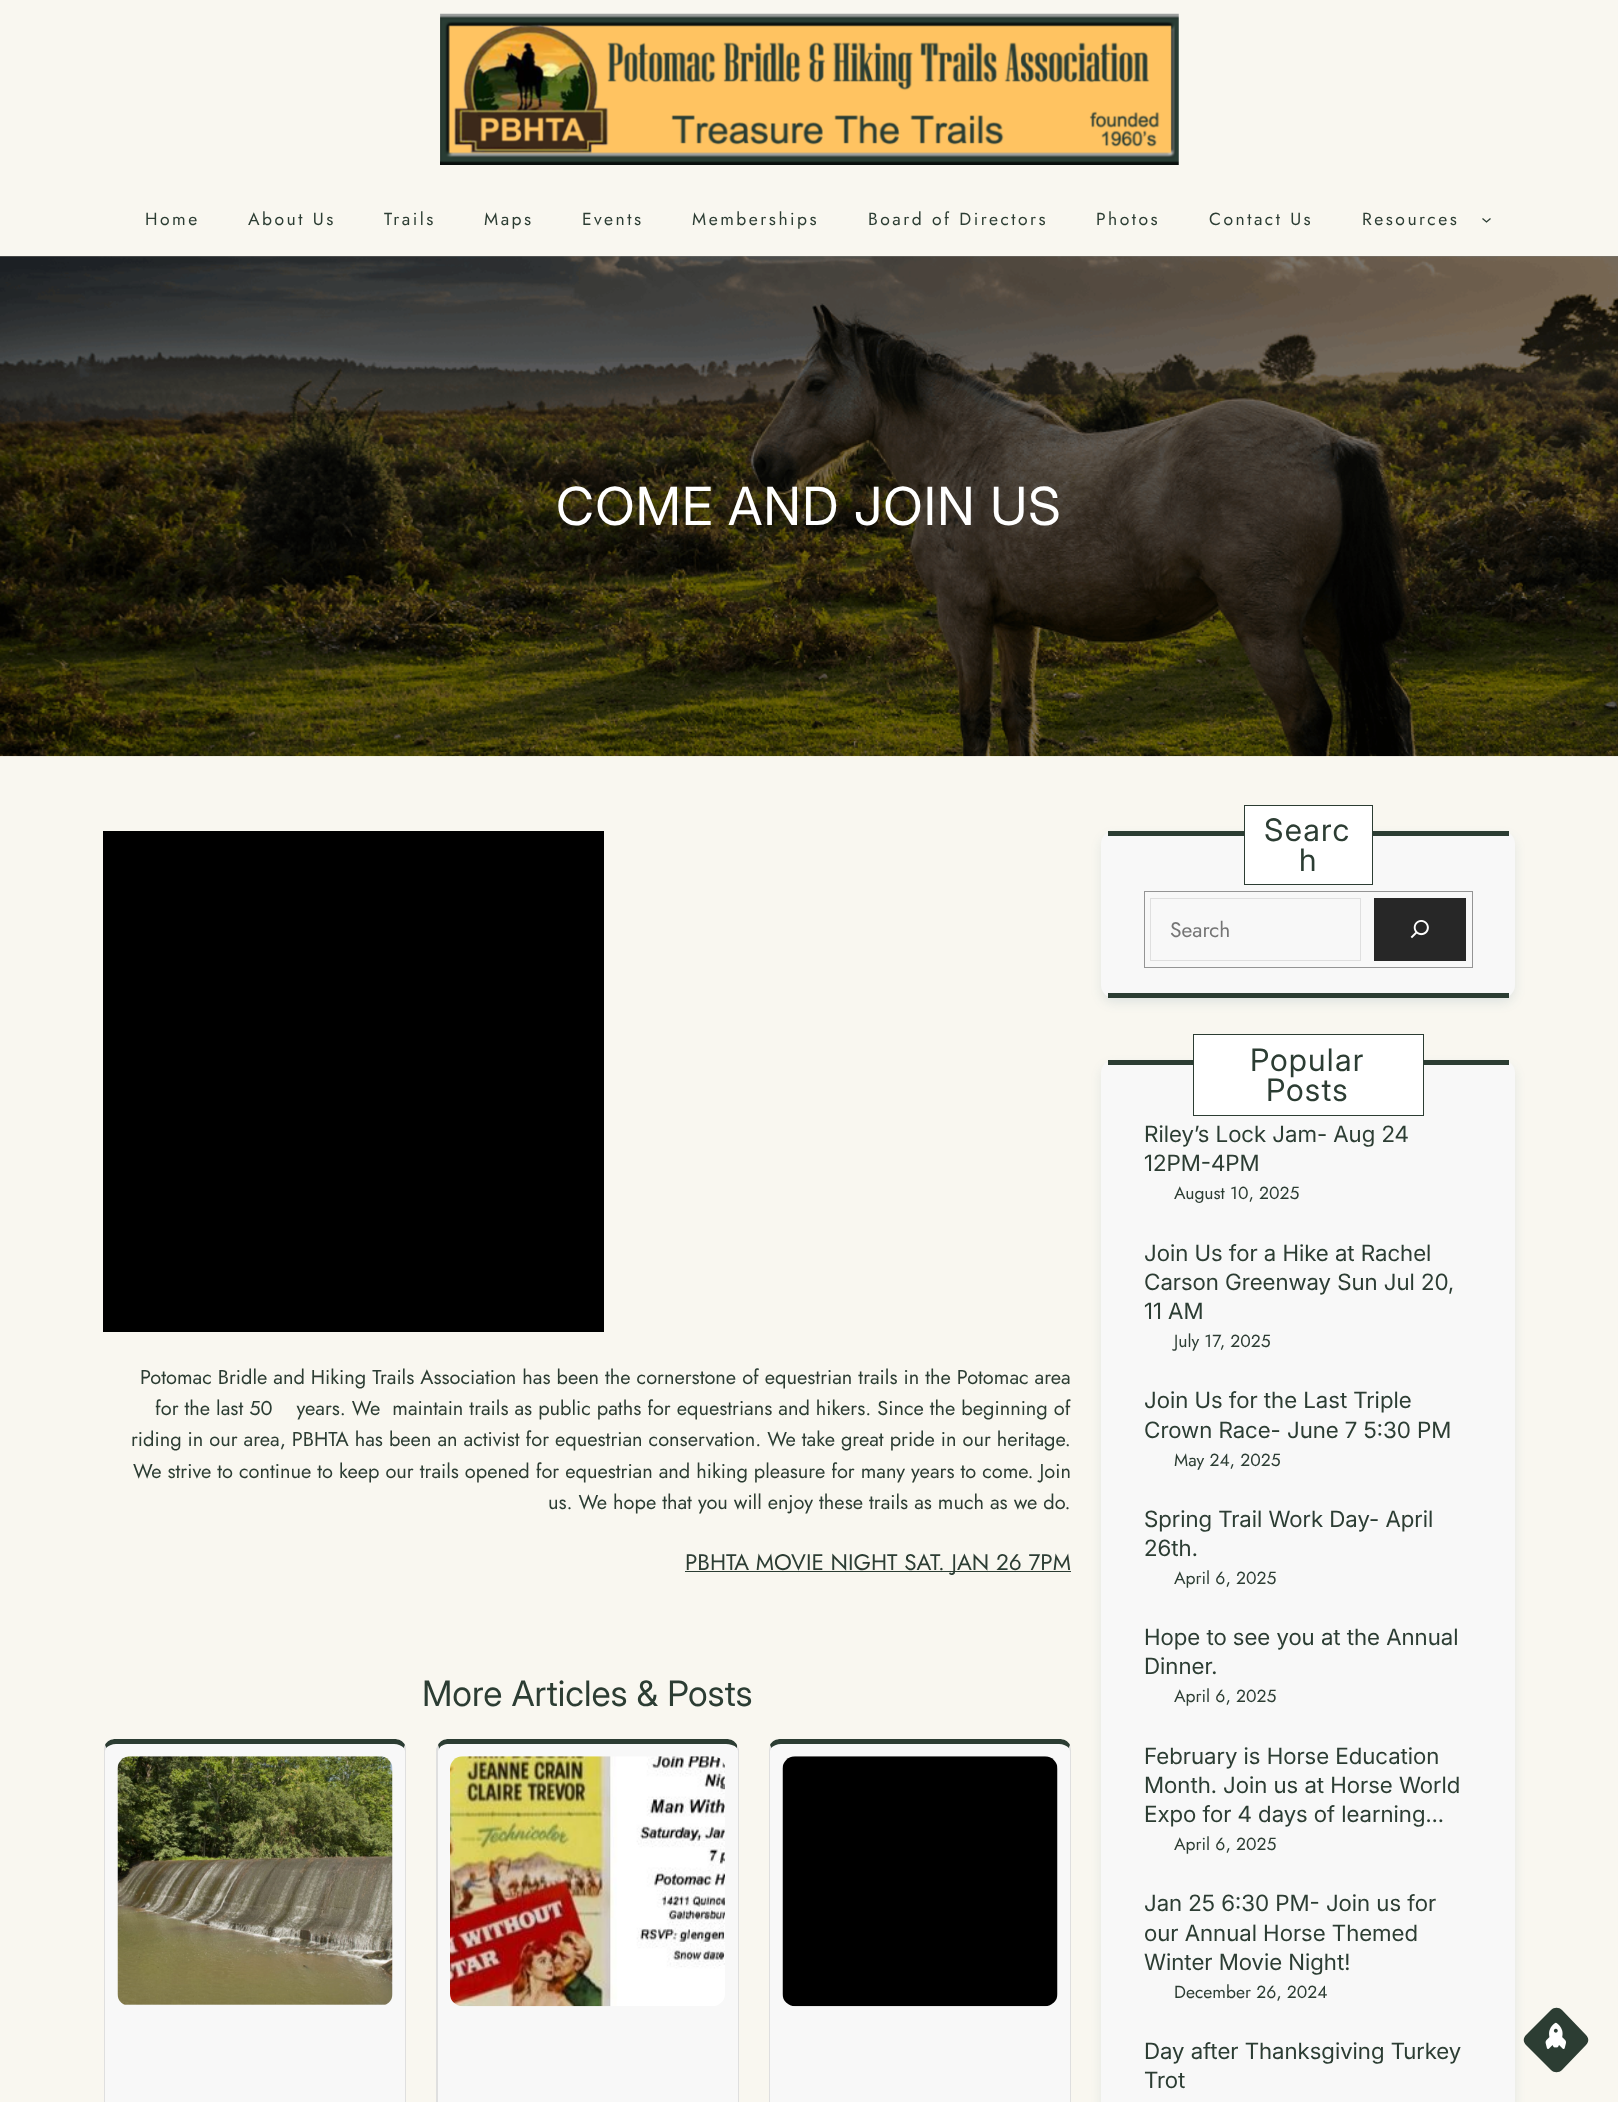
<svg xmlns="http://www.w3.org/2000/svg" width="1618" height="2102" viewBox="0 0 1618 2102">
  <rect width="100%" height="100%" fill="rgb(249,247,240)"/>
  <rect x="0" y="256" width="1618" height="1" fill="rgb(125,124,120)"/>
  <image x="440" y="13" width="739" height="152" href="pic1.png"/>
  <g font-family="Jost" font-size="17.5" letter-spacing="2.5" fill="rgb(44,61,51)">
    <text x="145" y="225">Home</text>
    <text x="248" y="225">About Us</text>
    <text x="384" y="225">Trails</text>
    <text x="484" y="225">Maps</text>
    <text x="582" y="225">Events</text>
    <text x="692" y="225">Memberships</text>
    <text x="868" y="225">Board of Directors</text>
    <text x="1096" y="225">Photos</text>
    <text x="1209" y="225">Contact Us</text>
    <text x="1362" y="225">Resources</text>
  </g>
  <path d="M1482.5 218.5L1486.5 222L1490.5 218.5" fill="none" stroke="rgb(44,61,51)" stroke-width="1.3"/>
  <image x="0" y="256" width="1618" height="501" href="pic2.png"/>
  <text x="556" y="525" font-family="'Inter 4'" font-size="52.5" letter-spacing="1.25" fill="rgb(255,255,255)">COME AND JOIN US</text>
  <rect x="103" y="831" width="501" height="501" fill="rgb(0,0,0)"/>
  <g font-family="Jost" font-size="20" fill="rgb(44,61,51)">
    <text x="140" y="1384">Potomac Bridle and Hiking Trails Association has been the cornerstone of equestrian trails in the Potomac area</text>
    <text x="155" y="1415" xml:space="preserve">for the last 50    years. We  maintain trails as public paths for equestrians and hikers. Since the beginning of</text>
    <text x="131" y="1446">riding in our area, PBHTA has been an activist for equestrian conservation. We take great pride in our heritage.</text>
    <text x="133" y="1478">We strive to continue to keep our trails opened for equestrian and hiking pleasure for many years to come. Join</text>
    <text x="548" y="1509">us. We hope that you will enjoy these trails as much as we do.</text>
  </g>
  <rect x="685" y="1571" width="386" height="1" fill="rgb(44,61,51)"/>
  <text x="685" y="1570" font-family="Jost" font-size="22.5" fill="rgb(44,61,51)">PBHTA MOVIE NIGHT SAT. JAN 26 7PM</text>
  <text x="422" y="1706" font-family="Inter" font-size="35" fill="rgb(44,61,51)">More Articles &amp; Posts</text>
  <path d="M116 1744H394C400 1744 405 1747 405 1751V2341C405 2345 400 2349 394 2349H116C110 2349 105 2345 105 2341V1751C105 1747 110 1744 116 1744Z" fill="rgb(248,248,248)"/>
  <path d="M116 1739C111 1739 107 1741 105 1745L106 1748C108 1746 112 1744 116 1744H394C398 1744 402 1746 404 1748L405 1745C403 1741 399 1739 394 1739Z" fill="rgb(44,61,51)"/>
  <path d="M405 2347C406 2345 406 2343 406 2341V1751C406 1749 406 1747 405 1745L404 1748L405 1751V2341L404 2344Z" fill="rgb(223,223,223)"/>
  <path d="M105 1745C104 1747 104 1749 104 1751V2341C104 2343 104 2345 105 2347L106 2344L105 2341V1751L106 1748Z" fill="rgb(223,223,223)"/>
  <image x="117" y="1756" width="276" height="249" href="pic3.png"/>
  <path d="M449 1744H726C732 1744 738 1747 738 1751V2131C738 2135 732 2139 726 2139H449C443 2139 438 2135 438 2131V1751C438 1747 443 1744 449 1744Z" fill="rgb(248,248,248)"/>
  <path d="M449 1739C444 1739 440 1741 438 1745L439 1749C440 1746 444 1744 449 1744H726C730 1744 734 1745 737 1748V1745C735 1741 731 1739 726 1739Z" fill="rgb(44,61,51)"/>
  <path d="M739 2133L737 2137L736 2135L738 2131V1751C738 1750 737 1749 737 1748V1745L739 1749Z" fill="rgb(223,223,223)"/>
  <path d="M436 1749L438 1745L439 1749L438 1751V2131L439 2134L438 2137L436 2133Z" fill="rgb(223,223,223)"/>
  <image x="450" y="1756" width="275" height="251" href="pic4.png"/>
  <path d="M781 1744H1059C1065 1744 1070 1747 1070 1751V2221C1070 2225 1065 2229 1059 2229H781C775 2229 770 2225 770 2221V1751C770 1747 775 1744 781 1744Z" fill="rgb(248,248,248)"/>
  <path d="M781 1739C776 1739 772 1741 770 1745L771 1748C773 1746 777 1744 781 1744H1059C1063 1744 1067 1746 1069 1748L1070 1745C1068 1741 1064 1739 1059 1739Z" fill="rgb(44,61,51)"/>
  <path d="M1070 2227C1071 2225 1071 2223 1071 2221V1750L1070 1745L1069 1748L1070 1751V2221L1069 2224Z" fill="rgb(223,223,223)"/>
  <path d="M770 1745L769 1750V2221C769 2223 769 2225 770 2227L771 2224L770 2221V1751L771 1748Z" fill="rgb(223,223,223)"/>
  <image x="782" y="1756" width="276" height="251" href="pic5.png"/>
  <rect x="1101" y="836" width="414" height="167" rx="13" fill="rgba(18,79,106,0.1)" filter="blur(5.5px)"/>
  <rect x="1101" y="831" width="414" height="167" rx="13" fill="rgb(248,248,248)"/>
  <rect x="1108" y="831" width="401" height="5" fill="rgb(44,61,51)"/>
  <rect x="1108" y="993" width="401" height="5" fill="rgb(44,61,51)"/>
  <rect x="1244.5" y="805.5" width="128" height="79" fill="rgb(255,255,255)" stroke="rgb(44,61,51)"/>
  <g font-family="'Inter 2'" font-size="31" letter-spacing="1.25" fill="rgb(44,61,51)">
    <text x="1264" y="841">Searc</text>
    <text x="1299" y="871">h</text>
  </g>
  <rect x="1144.5" y="891.5" width="328" height="76" fill="none" stroke="rgb(148,148,148)"/>
  <rect x="1150.5" y="898.5" width="210" height="62" fill="none" stroke="rgb(223,223,223)"/>
  <text x="1170" y="937" font-family="Jost" font-size="21" fill="rgb(117,117,117)">Search</text>
  <rect x="1374" y="898" width="92" height="63" fill="rgb(39,39,39)"/>
  <image x="1410" y="920" width="19" height="19" href="pic6.png"/>
  <rect x="1101" y="1065" width="414" height="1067" rx="13" fill="rgba(18,79,106,0.1)" filter="blur(5.5px)"/>
  <rect x="1101" y="1060" width="414" height="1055" rx="13" fill="rgb(248,248,248)"/>
  <rect x="1108" y="1060" width="401" height="5" fill="rgb(44,61,51)"/>
  <rect x="1193.5" y="1034.5" width="230" height="81" fill="rgb(255,255,255)" stroke="rgb(44,61,51)"/>
  <g font-family="'Inter 2'" font-size="31" letter-spacing="1.25" fill="rgb(44,61,51)">
    <text x="1250" y="1071">Popular</text>
    <text x="1266" y="1101">Posts</text>
  </g>
  <g font-family="'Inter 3'" font-size="22.5" fill="rgb(44,61,51)">
    <text>
      <tspan x="1144" y="1142">Riley’s Lock Jam- Aug 24</tspan>
      <tspan x="1144" y="1171">12PM-4PM</tspan>
    </text>
  </g>
  <text x="1174" y="1199" font-family="Jost" font-size="17.5" fill="rgb(44,61,51)">August 10, 2025</text>
  <g font-family="'Inter 3'" font-size="22.5" fill="rgb(44,61,51)">
    <text>
      <tspan x="1144" y="1261">Join Us for a Hike at Rachel</tspan>
      <tspan x="1144" y="1290">Carson Greenway Sun Jul 20,</tspan>
      <tspan x="1144" y="1319">11 AM</tspan>
    </text>
  </g>
  <text x="1174" y="1347" font-family="Jost" font-size="17.5" fill="rgb(44,61,51)">July 17, 2025</text>
  <g font-family="'Inter 3'" font-size="22.5" fill="rgb(44,61,51)">
    <text>
      <tspan x="1144" y="1408">Join Us for the Last Triple</tspan>
      <tspan x="1144" y="1438">Crown Race- June 7 5:30 PM</tspan>
    </text>
  </g>
  <text x="1174" y="1466" font-family="Jost" font-size="17.5" fill="rgb(44,61,51)">May 24, 2025</text>
  <g font-family="'Inter 3'" font-size="22.5" fill="rgb(44,61,51)">
    <text>
      <tspan x="1144" y="1527">Spring Trail Work Day- April</tspan>
      <tspan x="1144" y="1556">26th.</tspan>
    </text>
  </g>
  <text x="1174" y="1584" font-family="Jost" font-size="17.5" fill="rgb(44,61,51)">April 6, 2025</text>
  <g font-family="'Inter 3'" font-size="22.5" fill="rgb(44,61,51)">
    <text>
      <tspan x="1144" y="1645">Hope to see you at the Annual</tspan>
      <tspan x="1144" y="1674">Dinner.</tspan>
    </text>
  </g>
  <text x="1174" y="1702" font-family="Jost" font-size="17.5" fill="rgb(44,61,51)">April 6, 2025</text>
  <g font-family="'Inter 3'" font-size="22.5" fill="rgb(44,61,51)">
    <text>
      <tspan x="1144" y="1764">February is Horse Education</tspan>
      <tspan x="1144" y="1793">Month. Join us at Horse World</tspan>
      <tspan x="1144" y="1822">Expo for 4 days of learning…</tspan>
    </text>
  </g>
  <text x="1174" y="1850" font-family="Jost" font-size="17.5" fill="rgb(44,61,51)">April 6, 2025</text>
  <g font-family="'Inter 3'" font-size="22.5" fill="rgb(44,61,51)">
    <text>
      <tspan x="1144" y="1911">Jan 25 6:30 PM- Join us for</tspan>
      <tspan x="1144" y="1941">our Annual Horse Themed</tspan>
      <tspan x="1144" y="1970">Winter Movie Night!</tspan>
    </text>
  </g>
  <text x="1174" y="1998" font-family="Jost" font-size="17.5" fill="rgb(44,61,51)">December 26, 2024</text>
  <g font-family="'Inter 3'" font-size="22.5" fill="rgb(44,61,51)">
    <text>
      <tspan x="1144" y="2059">Day after Thanksgiving Turkey</tspan>
      <tspan x="1144" y="2088">Trot</tspan>
    </text>
  </g>
  <path d="M1526 2035L1551 2010C1554 2007 1559 2007 1562 2010L1586 2035C1589 2038 1589 2042 1586 2045L1562 2070C1559 2073 1554 2073 1551 2070L1526 2045C1523 2042 1523 2038 1526 2035Z" fill="rgb(44,61,51)"/>
  <image x="1545" y="2022" width="21" height="27" href="pic7.png"/>
</svg>
